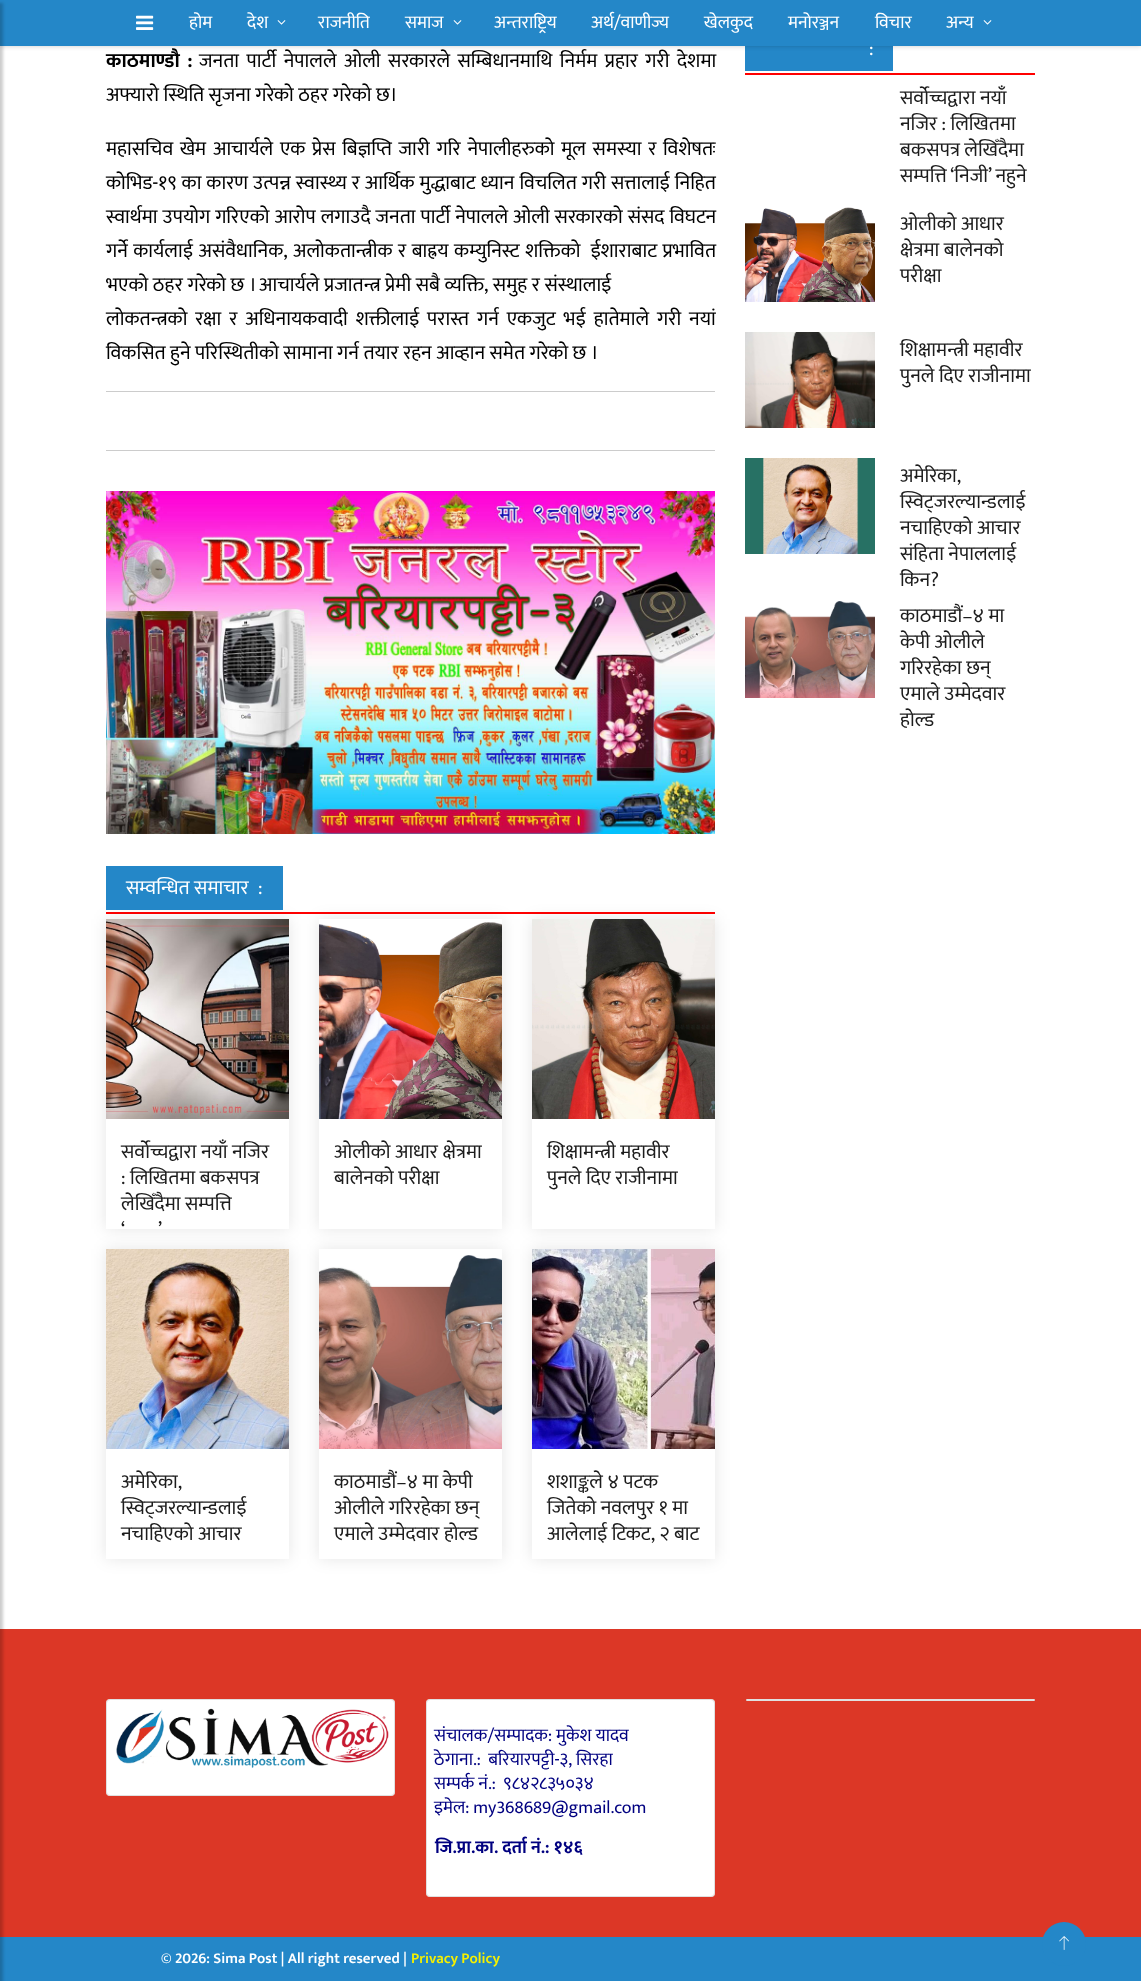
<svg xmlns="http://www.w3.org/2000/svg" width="1141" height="1981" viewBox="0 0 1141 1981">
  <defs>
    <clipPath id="clip1"><path d="M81 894H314V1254H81ZM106 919H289V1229H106Z" clip-rule="evenodd"/></clipPath>
    <clipPath id="clip2"><path d="M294 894H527V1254H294ZM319 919H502V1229H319Z" clip-rule="evenodd"/></clipPath>
    <clipPath id="clip3"><path d="M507 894H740V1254H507ZM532 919H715V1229H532Z" clip-rule="evenodd"/></clipPath>
    <clipPath id="clip4"><path d="M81 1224H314V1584H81ZM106 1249H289V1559H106Z" clip-rule="evenodd"/></clipPath>
    <clipPath id="clip5"><path d="M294 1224H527V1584H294ZM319 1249H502V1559H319Z" clip-rule="evenodd"/></clipPath>
    <clipPath id="clip6"><path d="M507 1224H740V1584H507ZM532 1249H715V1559H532Z" clip-rule="evenodd"/></clipPath>
  </defs>
  <rect width="100%" height="100%" fill="rgb(255,255,255)"/>
  <rect x="745" y="46" width="148" height="25" fill="rgb(36,135,200)"/>
  <rect x="0" y="0" width="1141" height="46" fill="rgba(0,0,0,0.2)" filter="blur(2.5px)"/>
  <rect x="0" y="0" width="1141" height="46" fill="rgb(36,135,200)"/>
  <rect x="0" y="1629" width="1141" height="308" fill="rgb(220,55,38)"/>
  <rect x="0" y="1937" width="1141" height="44" fill="rgb(36,135,200)"/>
  <rect x="-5" y="3" width="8" height="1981" fill="rgba(0,0,0,0.2)" filter="blur(1.5px)"/>
  <image x="136" y="15" width="18" height="15" href="pic1.png"/>
  <g font-family="Ek Mukta" font-size="18" fill="rgb(255,255,255)">
    <text x="189" y="28">होम</text>
    <text x="247" y="28">देश</text>
  </g>
  <image x="277" y="20" width="9" height="5" href="pic2.png"/>
  <g font-family="Ek Mukta" font-size="18" fill="rgb(255,255,255)">
    <text x="318" y="28">राजनीति</text>
    <text x="405" y="28">समाज</text>
  </g>
  <image x="453" y="20" width="9" height="5" href="pic2.png"/>
  <g font-family="Ek Mukta" font-size="18" fill="rgb(255,255,255)">
    <text x="494" y="28">अन्तराष्ट्रिय</text>
    <text x="591" y="28">अर्थ/वाणीज्य</text>
    <text x="704" y="28">खेलकुद</text>
    <text x="788" y="28">मनोरञ्जन</text>
    <text x="875" y="28">विचार</text>
    <text x="946" y="28">अन्य</text>
  </g>
  <image x="983" y="20" width="9" height="5" href="pic2.png"/>
  <text x="106" y="67" word-spacing="3" font-family="Ek Mukta" font-size="20" font-weight="bold" fill="rgb(0,0,0)">काठमाण्डौ :</text>
  <g font-family="Ek Mukta" font-size="20" fill="rgb(0,0,0)">
    <text x="199" y="67" word-spacing="3">जनता पार्टी नेपालले ओली सरकारले सम्बिधानमाथि निर्मम प्रहार गरी देशमा</text>
    <text x="106" y="101">अफ्यारो स्थिति सृजना गरेको ठहर गरेको छ।</text>
    <text xml:space="preserve"><tspan x="106" y="155" word-spacing="2.25">महासचिव खेम आचार्यले एक प्रेस बिज्ञप्ति जारी गरि नेपालीहरुको मूल समस्या र विशेषतः</tspan><tspan x="106" y="189" word-spacing="0.5">कोभिड-१९ का कारण उत्पन्न स्वास्थ्य र आर्थिक मुद्धाबाट ध्यान विचलित गरी सत्तालाई निहित</tspan><tspan x="106" y="223" word-spacing="0.5">स्वार्थमा उपयोग गरिएको आरोप लगाउदै जनता पार्टी नेपालले ओली सरकारको संसद विघटन</tspan><tspan x="106" y="257" word-spacing="1">गर्ने कार्यलाई असंवैधानिक, अलोकतान्त्रीक र बाह्रय कम्युनिस्ट शक्तिको  ईशाराबाट प्रभावित</tspan><tspan x="106" y="291" word-spacing="0.1">भएको ठहर गरेको छ । आचार्यले प्रजातन्त्र प्रेमी सबै व्यक्ति, समुह र संस्थालाई</tspan><tspan x="106" y="325" word-spacing="3.5">लोकतन्त्रको रक्षा र अधिनायकवादी शक्तीलाई परास्त गर्न एकजुट भई हातेमाले गरी नयां</tspan><tspan x="106" y="359">विकसित हुने परिस्थितीको सामाना गर्न तयार रहन आव्हान समेत गरेको छ ।</tspan></text>
  </g>
  <rect x="106" y="391" width="609" height="1" fill="rgb(204,204,204)"/>
  <rect x="106" y="450" width="609" height="1" fill="rgb(204,204,204)"/>
  <image x="106" y="491" width="609" height="343" href="pic3.png"/>
  <rect x="106" y="912" width="609" height="2" fill="rgb(255,0,0)"/>
  <g clip-path="url(#clip1)">
    <rect x="106" y="919" width="183" height="310" fill="rgba(0,0,0,0.1)" filter="blur(8px)"/>
  </g>
  <rect x="106" y="866" width="177" height="44" fill="rgb(36,135,200)"/>
  <g font-family="Ek Mukta" font-size="20" fill="rgb(255,255,255)">
    <text x="126" y="894">सम्वन्धित समाचार</text>
    <text x="258" y="894">:</text>
  </g>
  <image x="106" y="919" width="183" height="200" href="pic4.png"/>
  <g font-family="Ek Mukta" font-size="20" fill="rgb(28,28,28)">
    <text>
      <tspan x="121" y="1158">सर्वोच्चद्वारा नयाँ नजिर</tspan>
      <tspan x="121" y="1184">: लिखितमा बकसपत्र</tspan>
      <tspan x="121" y="1210">लेखिँदैमा सम्पत्ति</tspan>
      <tspan x="121" y="1236" word-spacing="-1">‘</tspan>
    </text>
    <text x="158" y="1236" word-spacing="-1">’</text>
  </g>
  <g clip-path="url(#clip2)">
    <rect x="319" y="919" width="183" height="310" fill="rgba(0,0,0,0.1)" filter="blur(8px)"/>
  </g>
  <image x="319" y="922" width="183" height="197" href="pic5.png"/>
  <g font-family="Ek Mukta" font-size="20" fill="rgb(28,28,28)">
    <text>
      <tspan x="334" y="1158">ओलीको आधार क्षेत्रमा</tspan>
      <tspan x="334" y="1184">बालेनको परीक्षा</tspan>
    </text>
  </g>
  <g clip-path="url(#clip3)">
    <rect x="532" y="919" width="183" height="310" fill="rgba(0,0,0,0.1)" filter="blur(8px)"/>
  </g>
  <image x="532" y="919" width="183" height="200" href="pic6.png"/>
  <g font-family="Ek Mukta" font-size="20" fill="rgb(28,28,28)">
    <text>
      <tspan x="547" y="1158">शिक्षामन्त्री महावीर</tspan>
      <tspan x="547" y="1184">पुनले दिए राजीनामा</tspan>
    </text>
  </g>
  <g clip-path="url(#clip4)">
    <rect x="106" y="1249" width="183" height="310" fill="rgba(0,0,0,0.1)" filter="blur(8px)"/>
  </g>
  <image x="106" y="1249" width="183" height="200" href="pic7.png"/>
  <g font-family="Ek Mukta" font-size="20" fill="rgb(28,28,28)">
    <text>
      <tspan x="121" y="1488">अमेरिका,</tspan>
      <tspan x="121" y="1514">स्विट्जरल्यान्डलाई</tspan>
      <tspan x="121" y="1540">नचाहिएको आचार</tspan>
    </text>
  </g>
  <g clip-path="url(#clip5)">
    <rect x="319" y="1249" width="183" height="310" fill="rgba(0,0,0,0.1)" filter="blur(8px)"/>
  </g>
  <image x="319" y="1255" width="183" height="194" href="pic8.png"/>
  <g font-family="Ek Mukta" font-size="20" fill="rgb(28,28,28)">
    <text>
      <tspan x="334" y="1488">काठमाडौं–४ मा केपी</tspan>
      <tspan x="334" y="1514">ओलीले गरिरहेका छन्</tspan>
      <tspan x="334" y="1540">एमाले उम्मेदवार होल्ड</tspan>
    </text>
  </g>
  <g clip-path="url(#clip6)">
    <rect x="532" y="1249" width="183" height="310" fill="rgba(0,0,0,0.1)" filter="blur(8px)"/>
  </g>
  <image x="532" y="1249" width="183" height="200" href="pic9.png"/>
  <g font-family="Ek Mukta" font-size="20" fill="rgb(28,28,28)">
    <text>
      <tspan x="547" y="1488">शशाङ्कले ४ पटक</tspan>
      <tspan x="547" y="1514">जितेको नवलपुर १ मा</tspan>
      <tspan x="547" y="1540">आलेलाई टिकट, २ बाट</tspan>
    </text>
  </g>
  <rect x="745" y="73" width="290" height="2" fill="rgb(255,0,0)"/>
  <text x="869" y="55" font-family="Ek Mukta" font-size="20" fill="rgb(255,255,255)">:</text>
  <g font-family="Ek Mukta" font-size="20" fill="rgb(28,28,28)">
    <text>
      <tspan x="900" y="104">सर्वोच्चद्वारा नयाँ</tspan>
      <tspan x="900" y="130">नजिर : लिखितमा</tspan>
      <tspan x="900" y="156">बकसपत्र लेखिँदैमा</tspan>
      <tspan x="900" y="182" word-spacing="-1">सम्पत्ति ‘निजी’ नहुने</tspan>
    </text>
  </g>
  <image x="745" y="207" width="130" height="95" href="pic10.png"/>
  <g font-family="Ek Mukta" font-size="20" fill="rgb(28,28,28)">
    <text>
      <tspan x="900" y="230">ओलीको आधार</tspan>
      <tspan x="900" y="256">क्षेत्रमा बालेनको</tspan>
      <tspan x="900" y="282">परीक्षा</tspan>
    </text>
  </g>
  <image x="745" y="332" width="130" height="96" href="pic11.png"/>
  <g font-family="Ek Mukta" font-size="20" fill="rgb(28,28,28)">
    <text>
      <tspan x="900" y="356">शिक्षामन्त्री महावीर</tspan>
      <tspan x="900" y="382">पुनले दिए राजीनामा</tspan>
    </text>
  </g>
  <image x="745" y="458" width="130" height="96" href="pic12.png"/>
  <g font-family="Ek Mukta" font-size="20" fill="rgb(28,28,28)">
    <text>
      <tspan x="900" y="482">अमेरिका,</tspan>
      <tspan x="900" y="508">स्विट्जरल्यान्डलाई</tspan>
      <tspan x="900" y="534">नचाहिएको आचार</tspan>
      <tspan x="900" y="560">संहिता नेपाललाई</tspan>
      <tspan x="900" y="586">किन?</tspan>
    </text>
  </g>
  <image x="745" y="601" width="130" height="97" href="pic13.png"/>
  <g font-family="Ek Mukta" font-size="20" fill="rgb(28,28,28)">
    <text>
      <tspan x="900" y="622">काठमाडौं–४ मा</tspan>
      <tspan x="900" y="648">केपी ओलीले</tspan>
      <tspan x="900" y="674">गरिरहेका छन्</tspan>
      <tspan x="900" y="700">एमाले उम्मेदवार</tspan>
      <tspan x="900" y="726">होल्ड</tspan>
    </text>
  </g>
  <rect x="106" y="1699" width="289" height="97" rx="4" fill="rgb(255,255,255)"/>
  <rect x="106.5" y="1699.5" width="288" height="96" rx="3.5" fill="none" stroke="rgba(0,0,0,0.12)"/>
  <image x="116" y="1708" width="273" height="60" href="pic14.png"/>
  <rect x="746" y="1699" width="289" height="2" rx="1" fill="rgb(255,255,255)"/>
  <rect x="746" y="1699" width="289" height="2" fill="rgba(0,0,0,0.12)"/>
  <rect x="426" y="1699" width="289" height="198" rx="4" fill="rgb(255,255,255)"/>
  <rect x="426.5" y="1699.5" width="288" height="197" rx="3.5" fill="none" stroke="rgba(0,0,0,0.12)"/>
  <g font-family="Ek Mukta" font-size="18" fill="rgb(0,0,128)">
    <text xml:space="preserve"><tspan x="434" y="1741">संचालक/सम्पादक: मुकेश यादव</tspan><tspan x="434" y="1765">ठेगाना.:  बरियारपट्टी-३, सिरहा</tspan><tspan x="434" y="1789">सम्पर्क नं.:  ९८४२८३५०३४</tspan><tspan x="434" y="1813">इमेल: my368689@gmail.com</tspan></text>
  </g>
  <text x="435" y="1853" font-family="Ek Mukta" font-size="18" font-weight="bold" fill="rgb(0,0,128)">जि.प्रा.का. दर्ता नं.: १४६</text>
  <text x="161" y="1963" font-family="Ek Mukta" font-size="15" font-weight="600" fill="rgb(255,255,255)">© 2026: Sima Post | All right reserved |</text>
  <text x="411" y="1963" font-family="Ek Mukta" font-size="15" font-weight="600" fill="rgb(245,240,0)">Privacy Policy</text>
  <circle cx="1064" cy="1944" r="22" fill="rgb(36,135,200)"/>
  <image x="1059" y="1936" width="10" height="14" href="pic15.png"/>
</svg>
